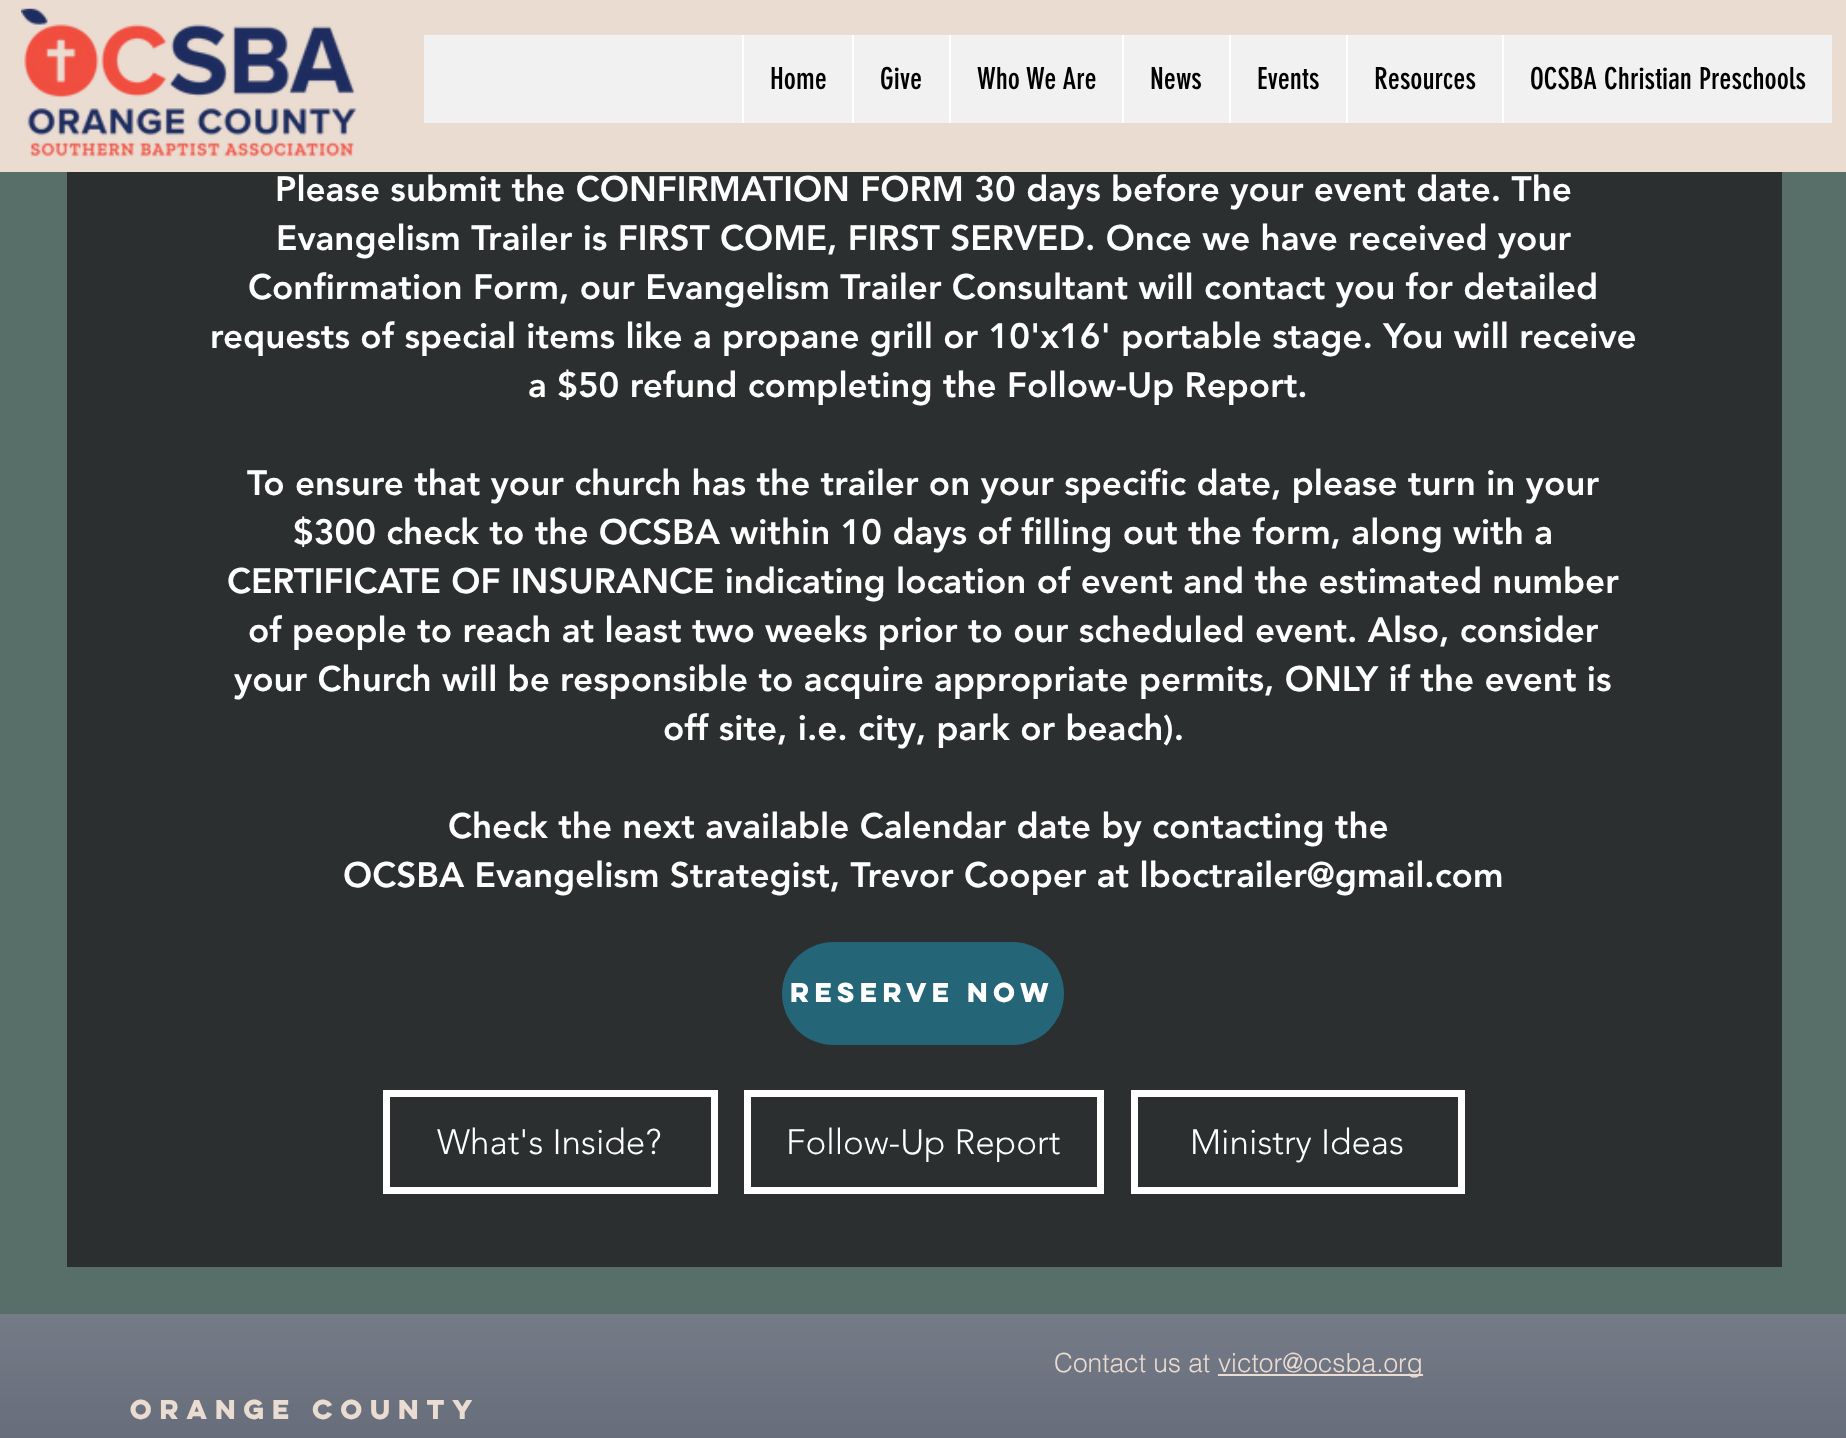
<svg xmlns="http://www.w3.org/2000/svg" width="1846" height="1438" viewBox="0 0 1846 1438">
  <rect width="100%" height="100%" fill="rgb(87,110,105)"/>
  <rect x="0" y="0" width="1846" height="172" fill="rgb(235,220,210)"/>
  <image x="21" y="8" width="336" height="149" href="pic1.png"/>
  <rect x="424" y="35" width="1408" height="88" fill="rgb(241,241,241)"/>
  <rect x="742" y="35" width="2" height="88" fill="rgb(255,255,255)"/>
  <text x="770" y="89" font-family="'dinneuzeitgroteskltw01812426'" font-size="29.75" fill="rgb(0,0,0)">Home</text>
  <rect x="852" y="35" width="2" height="88" fill="rgb(255,255,255)"/>
  <text x="880" y="89" font-family="'dinneuzeitgroteskltw01812426'" font-size="29.75" fill="rgb(0,0,0)">Give</text>
  <rect x="949" y="35" width="2" height="88" fill="rgb(255,255,255)"/>
  <text x="977" y="89" font-family="'dinneuzeitgroteskltw01812426'" font-size="29.75" fill="rgb(0,0,0)">Who We Are</text>
  <rect x="1122" y="35" width="2" height="88" fill="rgb(255,255,255)"/>
  <text x="1150" y="89" font-family="'dinneuzeitgroteskltw01812426'" font-size="29.75" fill="rgb(0,0,0)">News</text>
  <rect x="1229" y="35" width="2" height="88" fill="rgb(255,255,255)"/>
  <text x="1257" y="89" font-family="'dinneuzeitgroteskltw01812426'" font-size="29.75" fill="rgb(0,0,0)">Events</text>
  <rect x="1346" y="35" width="2" height="88" fill="rgb(255,255,255)"/>
  <text x="1374" y="89" font-family="'dinneuzeitgroteskltw01812426'" font-size="29.75" fill="rgb(0,0,0)">Resources</text>
  <rect x="1502" y="35" width="2" height="88" fill="rgb(255,255,255)"/>
  <text x="1530" y="89" font-family="'dinneuzeitgroteskltw01812426'" font-size="29.75" fill="rgb(0,0,0)">OCSBA Christian Preschools</text>
  <rect x="67" y="172" width="1715" height="1095" fill="rgb(44,47,47)"/>
  <g font-family="'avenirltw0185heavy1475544'" font-size="35" font-weight="900" fill="rgb(255,255,255)">
    <text x="275" y="201">Please submit the CONFIRMATION FORM 30 days before your event date. The</text>
    <text x="276" y="250">Evangelism Trailer is FIRST COME, FIRST SERVED. Once we have received your</text>
    <text x="248" y="299">Confirmation Form, our Evangelism Trailer Consultant will contact you for detailed</text>
    <text x="210" y="348">requests of special items like a propane grill or 10'x16' portable stage. You will receive</text>
    <text x="528" y="397">a $50 refund completing the Follow-Up Report.</text>
    <text x="247" y="495">To ensure that your church has the trailer on your specific date, please turn in your</text>
    <text x="293" y="544">$300 check to the OCSBA within 10 days of filling out the form, along with a</text>
    <text x="227" y="593">CERTIFICATE OF INSURANCE indicating location of event and the estimated number</text>
    <text x="248" y="642">of people to reach at least two weeks prior to our scheduled event. Also, consider</text>
    <text x="234" y="691">your Church will be responsible to acquire appropriate permits, ONLY if the event is</text>
    <text x="663" y="740">off site, i.e. city, park or beach).</text>
    <text x="448" y="838">Check the next available Calendar date by contacting the</text>
    <text x="343" y="887">OCSBA Evangelism Strategist, Trevor Cooper at lboctrailer@gmail.com</text>
  </g>
  <rect x="782" y="942" width="282" height="103" rx="51.5" fill="rgb(37,101,120)"/>
  <text x="790" y="1002" font-family="'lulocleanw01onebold'" font-size="24.5" font-weight="bold" fill="rgb(255,255,255)">RESERVE NOW</text>
  <rect x="386.5" y="1093.5" width="328" height="97" fill="none" stroke="rgb(255,255,255)" stroke-width="7"/>
  <text x="437" y="1154" font-family="'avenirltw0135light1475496'" font-size="35" font-weight="300" fill="rgb(255,255,255)">What's Inside?</text>
  <rect x="747.5" y="1093.5" width="353" height="97" fill="none" stroke="rgb(255,255,255)" stroke-width="7"/>
  <text x="786" y="1154" font-family="'avenirltw0135light1475496'" font-size="35" font-weight="300" fill="rgb(255,255,255)">Follow-Up Report</text>
  <rect x="1134.5" y="1093.5" width="327" height="97" fill="none" stroke="rgb(255,255,255)" stroke-width="7"/>
  <text x="1190" y="1154" font-family="'avenirltw0135light1475496'" font-size="35" font-weight="300" fill="rgb(255,255,255)">Ministry Ideas</text>
  <rect x="0" y="1314" width="1846" height="124" fill="rgb(69,77,93)"/>
  <image x="0" y="1314" width="1846" height="124" href="pic2.png"/>
  <text x="1054" y="1372" font-family="helvetica" font-size="26.25" font-weight="300" fill="rgb(235,220,210)">Contact us at</text>
  <rect x="1218" y="1374" width="205" height="2" fill="rgb(235,220,210)"/>
  <text x="1218" y="1372" font-family="helvetica" font-size="26.25" font-weight="300" fill="rgb(235,220,210)">victor@ocsba.org</text>
  <text x="130" y="1419" font-family="'lulocleanw01onebold'" font-size="24.5" font-weight="bold" letter-spacing="2.5" fill="rgb(235,220,210)">Orange County</text>
</svg>
